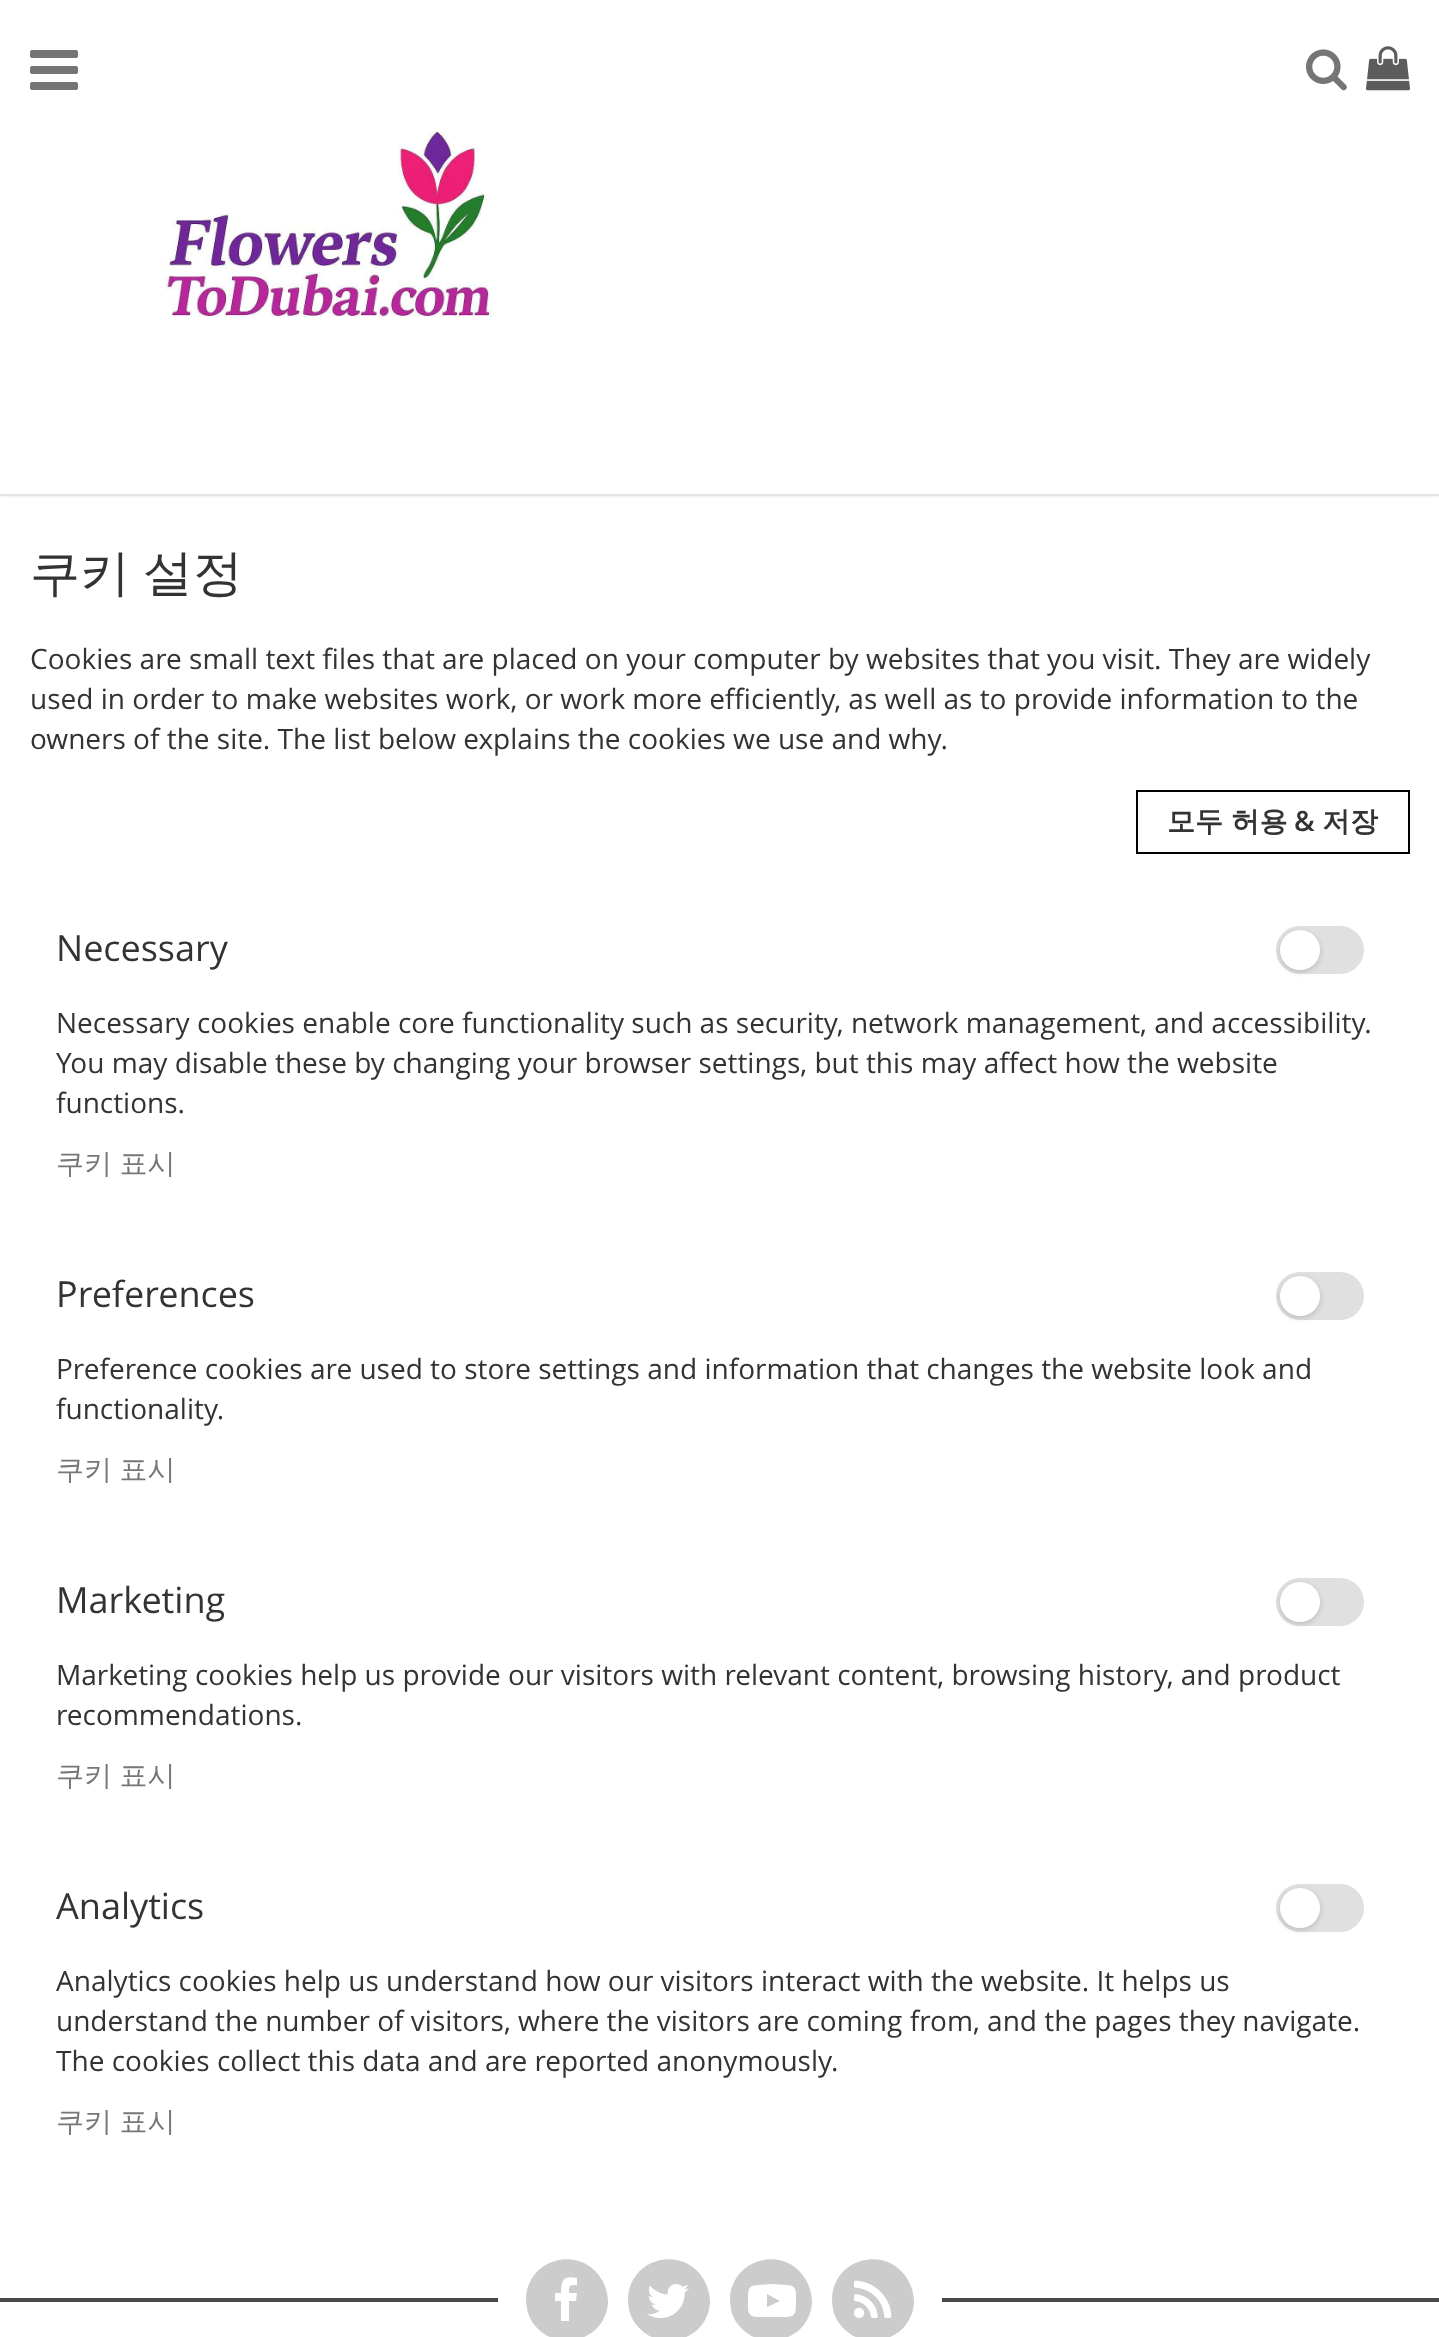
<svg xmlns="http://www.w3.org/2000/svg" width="1439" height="2337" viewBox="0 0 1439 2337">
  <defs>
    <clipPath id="clip1"><rect x="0" y="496" width="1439" height="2"/></clipPath>
  </defs>
  <rect width="100%" height="100%" fill="rgb(255,255,255)"/>
  <g clip-path="url(#clip1)">
    <rect x="0" y="0" width="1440" height="494" fill="rgba(0,0,0,0.2)" filter="blur(3px)"/>
  </g>
  <image x="1366" y="46" width="44" height="45" href="pic1.png"/>
  <image x="1306" y="49" width="41" height="42" href="pic2.png"/>
  <rect x="0" y="494" width="1439" height="2" fill="rgb(229,229,229)"/>
  <image x="30" y="50" width="48" height="40" href="pic3.png"/>
  <image x="165" y="131" width="330" height="186" href="pic4.png"/>
  <text x="30" y="590" word-spacing="-2" font-family="WenQuanYi Zen Hei" font-size="50" font-weight="500" fill="rgb(51,51,51)">쿠키 설정</text>
  <g font-family="Open Sans" font-size="28" fill="rgb(51,51,51)">
    <text>
      <tspan x="30" y="669">Cookies are small text files that are placed on your computer by websites that you visit. They are widely</tspan>
      <tspan x="30" y="709">used in order to make websites work, or work more efficiently, as well as to provide information to the</tspan>
      <tspan x="30" y="749">owners of the site. The list below explains the cookies we use and why.</tspan>
    </text>
  </g>
  <rect x="1137" y="791" width="272" height="62" fill="none" stroke="rgb(0,0,0)" stroke-width="2"/>
  <text x="1167" y="831" font-family="WenQuanYi Zen Hei" font-size="28" font-weight="bold" fill="rgb(51,51,51)">모두 허용</text>
  <text x="1294" y="831" font-family="Open Sans" font-size="28" font-weight="600" fill="rgb(51,51,51)">&amp;</text>
  <text x="1322" y="831" font-family="WenQuanYi Zen Hei" font-size="28" font-weight="bold" fill="rgb(51,51,51)">저장</text>
  <text x="56" y="961" font-family="Open Sans" font-size="36" fill="rgb(51,51,51)">Necessary</text>
  <rect x="1276" y="926" width="88" height="48" rx="24" fill="rgb(224,224,224)"/>
  <rect x="1280" y="932" width="40" height="40" rx="20" fill="rgba(0,0,0,0.06)" filter="blur(2px)"/>
  <rect x="1280" y="932" width="40" height="40" rx="20" fill="rgba(0,0,0,0.1)" filter="blur(3px)"/>
  <circle cx="1300" cy="950" r="20" fill="rgb(255,255,255)"/>
  <g font-family="Open Sans" font-size="28" fill="rgb(51,51,51)">
    <text>
      <tspan x="56" y="1033">Necessary cookies enable core functionality such as security, network management, and accessibility.</tspan>
      <tspan x="56" y="1073">You may disable these by changing your browser settings, but this may affect how the website</tspan>
      <tspan x="56" y="1113">functions.</tspan>
    </text>
  </g>
  <text x="56" y="1173" word-spacing="-1" font-family="WenQuanYi Zen Hei" font-size="28" font-weight="500" fill="rgb(119,119,119)">쿠키 표시</text>
  <text x="56" y="1307" font-family="Open Sans" font-size="36" fill="rgb(51,51,51)">Preferences</text>
  <rect x="1276" y="1272" width="88" height="48" rx="24" fill="rgb(224,224,224)"/>
  <rect x="1280" y="1278" width="40" height="40" rx="20" fill="rgba(0,0,0,0.06)" filter="blur(2px)"/>
  <rect x="1280" y="1278" width="40" height="40" rx="20" fill="rgba(0,0,0,0.1)" filter="blur(3px)"/>
  <circle cx="1300" cy="1296" r="20" fill="rgb(255,255,255)"/>
  <g font-family="Open Sans" font-size="28" fill="rgb(51,51,51)">
    <text>
      <tspan x="56" y="1379">Preference cookies are used to store settings and information that changes the website look and</tspan>
      <tspan x="56" y="1419">functionality.</tspan>
    </text>
  </g>
  <text x="56" y="1479" word-spacing="-1" font-family="WenQuanYi Zen Hei" font-size="28" font-weight="500" fill="rgb(119,119,119)">쿠키 표시</text>
  <text x="56" y="1613" font-family="Open Sans" font-size="36" fill="rgb(51,51,51)">Marketing</text>
  <rect x="1276" y="1578" width="88" height="48" rx="24" fill="rgb(224,224,224)"/>
  <rect x="1280" y="1584" width="40" height="40" rx="20" fill="rgba(0,0,0,0.06)" filter="blur(2px)"/>
  <rect x="1280" y="1584" width="40" height="40" rx="20" fill="rgba(0,0,0,0.1)" filter="blur(3px)"/>
  <circle cx="1300" cy="1602" r="20" fill="rgb(255,255,255)"/>
  <g font-family="Open Sans" font-size="28" fill="rgb(51,51,51)">
    <text>
      <tspan x="56" y="1685">Marketing cookies help us provide our visitors with relevant content, browsing history, and product</tspan>
      <tspan x="56" y="1725">recommendations.</tspan>
    </text>
  </g>
  <text x="56" y="1785" word-spacing="-1" font-family="WenQuanYi Zen Hei" font-size="28" font-weight="500" fill="rgb(119,119,119)">쿠키 표시</text>
  <text x="56" y="1919" font-family="Open Sans" font-size="36" fill="rgb(51,51,51)">Analytics</text>
  <rect x="1276" y="1884" width="88" height="48" rx="24" fill="rgb(224,224,224)"/>
  <rect x="1280" y="1890" width="40" height="40" rx="20" fill="rgba(0,0,0,0.06)" filter="blur(2px)"/>
  <rect x="1280" y="1890" width="40" height="40" rx="20" fill="rgba(0,0,0,0.1)" filter="blur(3px)"/>
  <circle cx="1300" cy="1908" r="20" fill="rgb(255,255,255)"/>
  <g font-family="Open Sans" font-size="28" fill="rgb(51,51,51)">
    <text>
      <tspan x="56" y="1991">Analytics cookies help us understand how our visitors interact with the website. It helps us</tspan>
      <tspan x="56" y="2031">understand the number of visitors, where the visitors are coming from, and the pages they navigate.</tspan>
      <tspan x="56" y="2071">The cookies collect this data and are reported anonymously.</tspan>
    </text>
  </g>
  <text x="56" y="2131" word-spacing="-1" font-family="WenQuanYi Zen Hei" font-size="28" font-weight="500" fill="rgb(119,119,119)">쿠키 표시</text>
  <rect x="0" y="2298" width="1439" height="4" fill="rgb(73,73,73)"/>
  <rect x="498" y="2254" width="444" height="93" rx="10" fill="rgb(255,255,255)"/>
  <path d="M602 2280C606 2287 608 2295 608 2303C605 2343 552 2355 531 2320C527 2313 526 2305 526 2297C529 2257 582 2245 602 2280Z" fill="rgb(204,204,204)"/>
  <path d="M577 2278V2285C569 2285 569 2285 569 2293H577L576 2301H569V2321H561V2301H555V2293H561C561 2281 563 2275 577 2278Z" fill="rgb(255,255,255)"/>
  <path d="M704 2280C708 2287 710 2295 710 2303C707 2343 654 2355 633 2320C629 2313 628 2305 628 2297C631 2257 684 2245 704 2280Z" fill="rgb(204,204,204)"/>
  <image x="647" y="2284" width="42" height="34" href="pic5.png"/>
  <path d="M806 2280C810 2287 812 2295 812 2303C809 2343 756 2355 735 2320C731 2313 730 2305 730 2297C733 2257 786 2245 806 2280Z" fill="rgb(204,204,204)"/>
  <path d="M767 2307L780 2301L767 2294ZM772 2284L786 2285C797 2285 796 2291 796 2301C796 2313 796 2317 785 2317H758C747 2317 748 2311 748 2301C748 2289 748 2285 759 2285Z" fill="rgb(255,255,255)"/>
  <path d="M908 2280C912 2287 914 2295 914 2303C911 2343 858 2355 837 2320C833 2313 832 2305 832 2297C835 2257 888 2245 908 2280Z" fill="rgb(204,204,204)"/>
  <image x="854" y="2280" width="38" height="38" href="pic6.png"/>
</svg>
